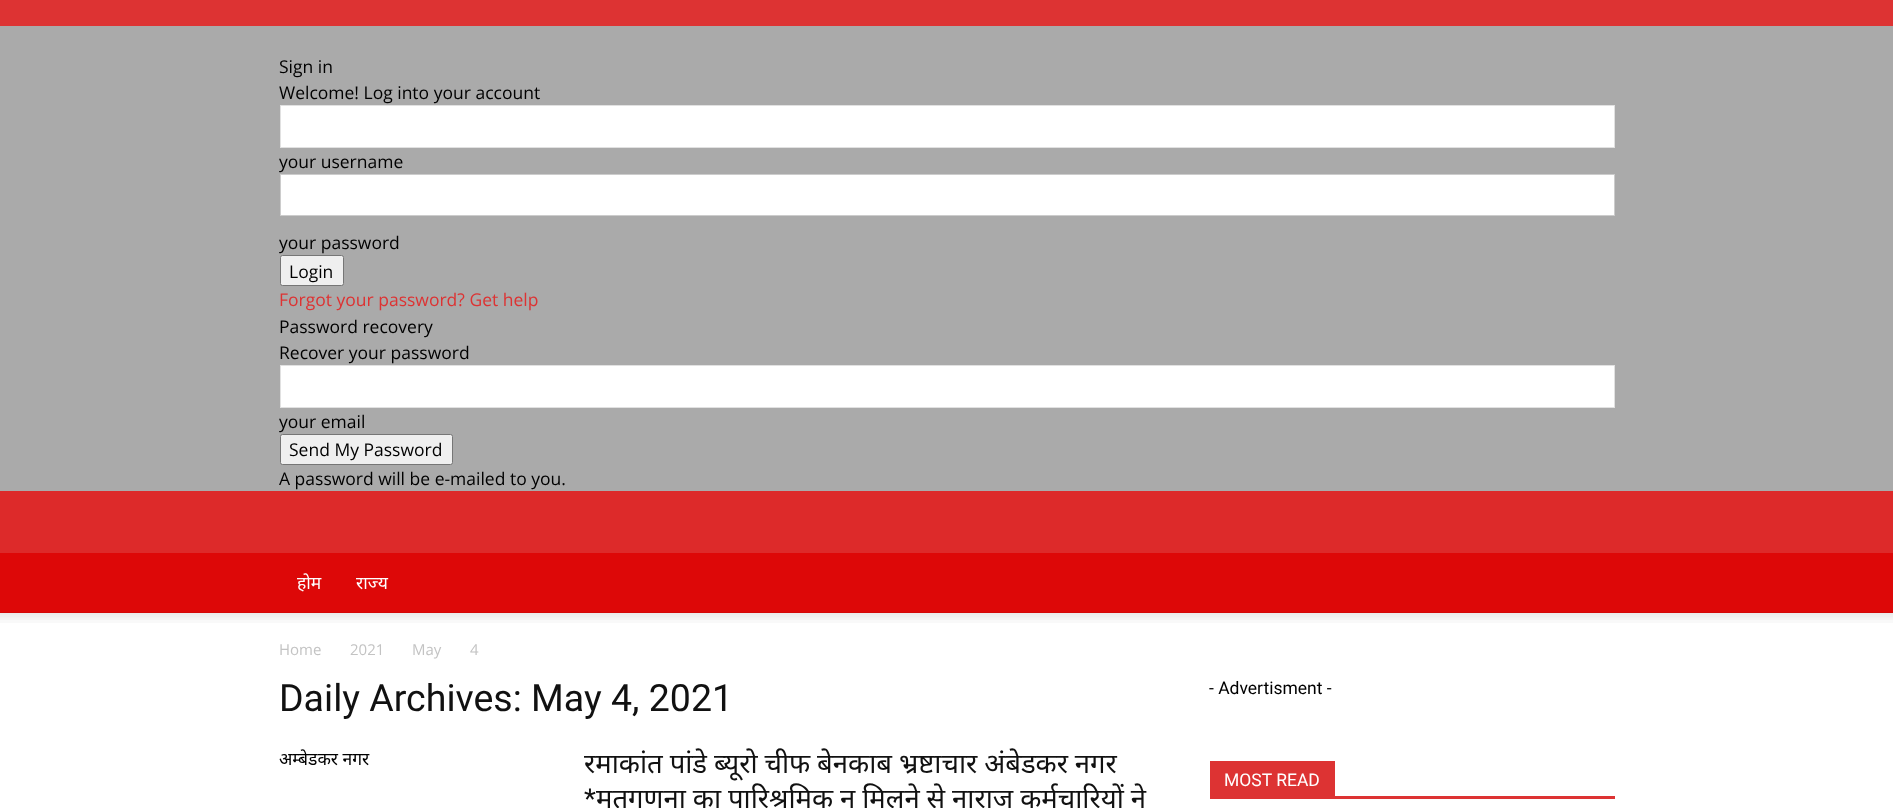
<svg xmlns="http://www.w3.org/2000/svg" width="1893" height="808" viewBox="0 0 1893 808">
  <rect width="100%" height="100%" fill="rgb(221,42,42)"/>
  <rect x="0" y="0" width="1893" height="26" fill="rgb(221,51,51)"/>
  <rect x="0" y="26" width="1893" height="465" fill="rgb(170,170,170)"/>
  <g font-family="Open Sans" font-size="17.5" fill="rgb(0,0,0)">
    <text>
      <tspan x="279" y="73">Sign in</tspan>
      <tspan x="279" y="99">Welcome! Log into your account</tspan>
    </text>
  </g>
  <rect x="280.5" y="105.5" width="1334" height="42" fill="rgb(255,255,255)" stroke="rgb(225,225,225)"/>
  <text x="279" y="168" font-family="Open Sans" font-size="17.5" fill="rgb(0,0,0)">your username</text>
  <rect x="280.5" y="174.5" width="1334" height="41" fill="rgb(255,255,255)" stroke="rgb(204,204,204)"/>
  <text x="279" y="249" font-family="Open Sans" font-size="17.5" fill="rgb(0,0,0)">your password</text>
  <rect x="280.5" y="255.5" width="63" height="30" rx="2" fill="rgb(239,239,239)" stroke="rgb(118,118,118)"/>
  <text x="289" y="278" font-family="Open Sans" font-size="17.5" fill="rgb(0,0,0)">Login</text>
  <text x="279" y="306" font-family="Open Sans" font-size="17.5" fill="rgb(221,51,51)">Forgot your password? Get help</text>
  <g font-family="Open Sans" font-size="17.5" fill="rgb(0,0,0)">
    <text>
      <tspan x="279" y="333">Password recovery</tspan>
      <tspan x="279" y="359">Recover your password</tspan>
    </text>
  </g>
  <rect x="280.5" y="365.5" width="1334" height="42" fill="rgb(255,255,255)" stroke="rgb(225,225,225)"/>
  <text x="279" y="428" font-family="Open Sans" font-size="17.5" fill="rgb(0,0,0)">your email</text>
  <rect x="280.5" y="434.5" width="172" height="30" rx="2" fill="rgb(239,239,239)" stroke="rgb(118,118,118)"/>
  <g font-family="Open Sans" font-size="17.5" fill="rgb(0,0,0)">
    <text x="289" y="456">Send My Password</text>
    <text x="279" y="485">A password will be e-mailed to you.</text>
  </g>
  <rect x="0" y="553" width="1893" height="60" fill="rgb(221,8,8)"/>
  <g font-family="Noto Sans" font-size="17.5" fill="rgb(255,255,255)">
    <text x="297" y="589">होम</text>
    <text x="356" y="589">राज्य</text>
  </g>
  <rect x="0" y="613" width="1893" height="195" fill="rgb(255,255,255)"/>
  <image x="0" y="612" width="1893" height="11" href="pic1.png"/>
  <g font-family="Open Sans" font-size="15" fill="rgb(195,195,195)">
    <text x="279" y="655">Home</text>
    <text x="350" y="655">2021</text>
    <text x="412" y="655">May</text>
    <text x="470" y="655">4</text>
  </g>
  <text x="279" y="711" font-family="Roboto" font-size="37.5" fill="rgb(17,17,17)">Daily Archives: May 4, 2021</text>
  <text x="279" y="765" font-family="Noto Sans" font-size="17.5" fill="rgb(0,0,0)">अम्बेडकर नगर</text>
  <text x="584" y="773" word-spacing="-0.25" font-family="Noto Sans" font-size="27.5" fill="rgb(17,17,17)">रमाकांत पांडे ब्यूरो चीफ बेनकाब भ्रष्टाचार अंबेडकर नगर</text>
  <text x="584" y="808" font-family="Roboto" font-size="27.5" fill="rgb(17,17,17)">*</text>
  <text x="596" y="808" word-spacing="-0.25" font-family="Noto Sans" font-size="27.5" fill="rgb(17,17,17)">मतगणना का पारिश्रमिक न मिलने से नाराज कर्मचारियों ने</text>
  <text x="1209" y="694" font-family="Roboto" font-size="17.5" fill="rgb(0,0,0)">- Advertisment -</text>
  <rect x="1210" y="796" width="405" height="3" fill="rgb(221,51,51)"/>
  <rect x="1210" y="761" width="125" height="35" fill="rgb(221,51,51)"/>
  <text x="1224" y="786" font-family="Roboto" font-size="17.5" fill="rgb(255,255,255)">MOST READ</text>
</svg>
